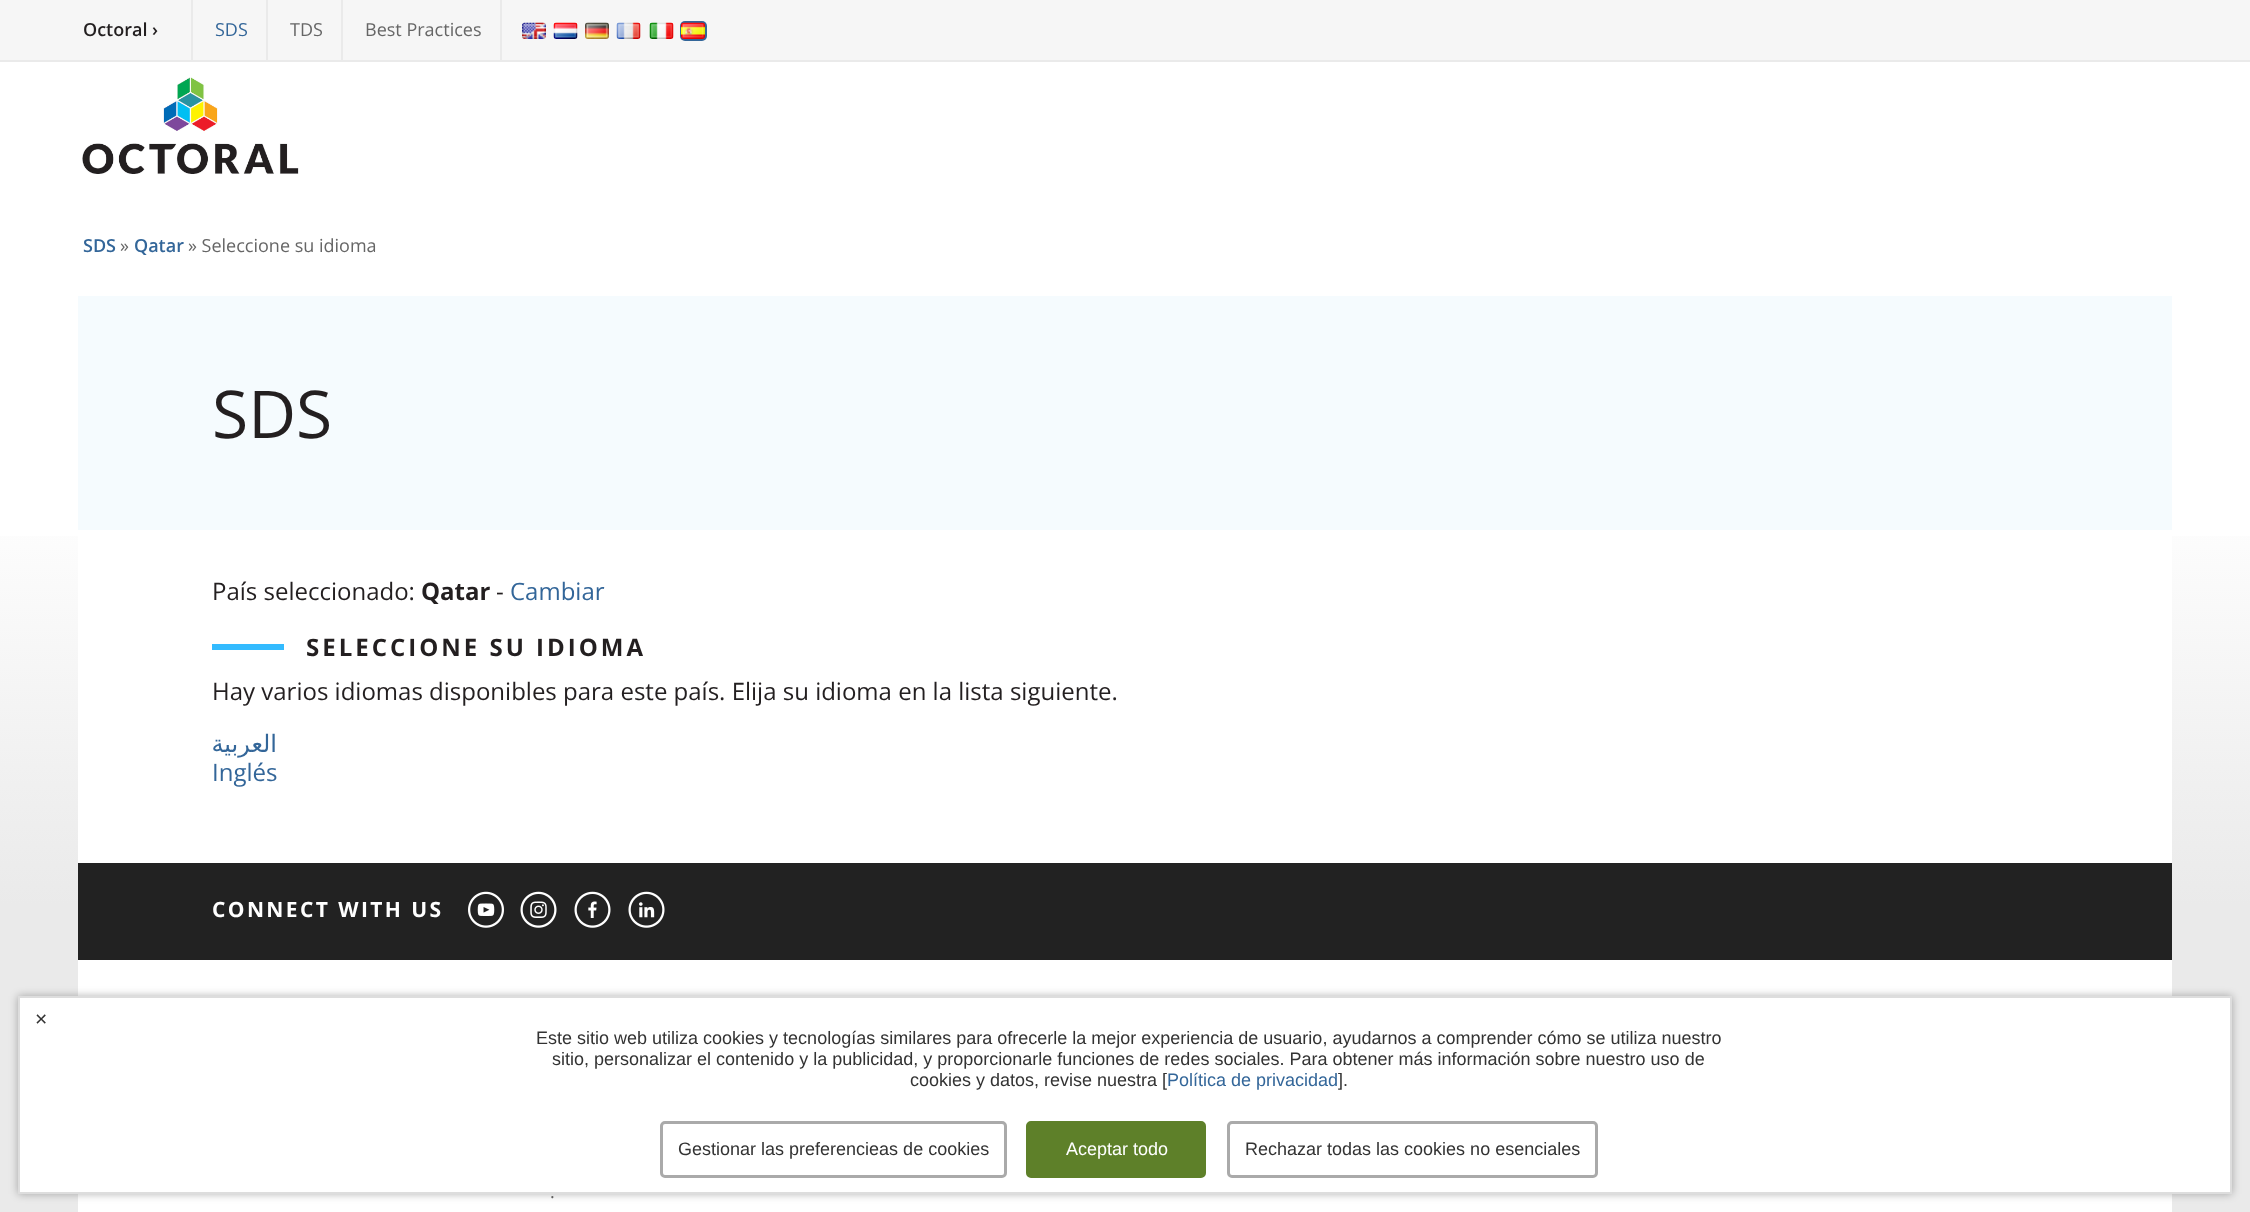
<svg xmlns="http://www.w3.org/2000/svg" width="2250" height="1212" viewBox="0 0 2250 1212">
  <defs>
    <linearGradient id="g1" gradientUnits="userSpaceOnUse" x1="1125" y1="0" x2="1125" y2="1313"><stop offset="0.16" stop-color="rgb(255,255,255)"/><stop offset="0.37" stop-color="rgb(255,255,255)"/><stop offset="0.69" stop-color="rgb(234,234,234)"/><stop offset="1" stop-color="rgb(234,234,234)"/></linearGradient>
  </defs>
  <rect width="100%" height="100%" fill="rgb(255,255,255)"/>
  <rect x="0" y="536" width="2250" height="676" fill="url(#g1)"/>
  <rect x="0" y="0" width="2250" height="60" fill="rgb(246,246,246)"/>
  <rect x="0" y="60" width="2250" height="2" fill="rgb(234,234,234)"/>
  <rect x="191" y="0" width="2" height="60" fill="rgb(234,234,234)"/>
  <text x="83" y="36" font-family="Open Sans" font-size="18" font-weight="600" fill="rgb(35,31,32)">Octoral ›</text>
  <rect x="266" y="0" width="2" height="60" fill="rgb(234,234,234)"/>
  <text x="215" y="36" font-family="Open Sans" font-size="18" fill="rgb(51,102,153)">SDS</text>
  <rect x="341" y="0" width="2" height="60" fill="rgb(234,234,234)"/>
  <text x="290" y="36" font-family="Open Sans" font-size="18" fill="rgb(102,102,102)">TDS</text>
  <rect x="500" y="0" width="2" height="60" fill="rgb(234,234,234)"/>
  <text x="365" y="36" font-family="Open Sans" font-size="18" fill="rgb(102,102,102)">Best Practices</text>
  <image x="522" y="22" width="24" height="17" href="pic1.png"/>
  <image x="553" y="22" width="25" height="17" href="pic2.png"/>
  <image x="585" y="22" width="24" height="17" href="pic3.png"/>
  <image x="616" y="22" width="25" height="17" href="pic4.png"/>
  <image x="649" y="22" width="25" height="17" href="pic5.png"/>
  <rect x="680" y="21" width="27" height="20" rx="5" fill="rgb(51,102,153)"/>
  <image x="681" y="22" width="24" height="17" href="pic6.png"/>
  <image x="82" y="77" width="217" height="97" href="pic7.png"/>
  <rect x="78" y="536" width="2094" height="327" fill="rgb(255,255,255)"/>
  <text x="83" y="252" font-family="Open Sans" font-size="18" font-weight="600" fill="rgb(51,102,153)">SDS</text>
  <text x="120" y="252" font-family="Open Sans" font-size="18" fill="rgb(102,102,102)">»</text>
  <text x="134" y="252" font-family="Open Sans" font-size="18" font-weight="600" fill="rgb(51,102,153)">Qatar</text>
  <text x="188" y="252" font-family="Open Sans" font-size="18" fill="rgb(102,102,102)">» Seleccione su idioma</text>
  <rect x="78" y="296" width="2094" height="234" fill="rgb(245,251,254)"/>
  <text x="212" y="438" font-family="Open Sans" font-size="66" fill="rgb(35,31,32)">SDS</text>
  <text x="212" y="600" font-family="Open Sans" font-size="24" fill="rgb(35,31,32)">País seleccionado:</text>
  <text x="421" y="600" font-family="Open Sans" font-size="24" font-weight="bold" fill="rgb(35,31,32)">Qatar</text>
  <text x="496" y="600" font-family="Open Sans" font-size="24" fill="rgb(35,31,32)">-</text>
  <text x="510" y="600" font-family="Open Sans" font-size="24" fill="rgb(51,102,153)">Cambiar</text>
  <rect x="212" y="644" width="72" height="6" fill="rgb(51,187,255)"/>
  <text x="306" y="656" font-family="Open Sans" font-size="24" font-weight="bold" letter-spacing="3" fill="rgb(35,31,32)">SELECCIONE SU IDIOMA</text>
  <text x="212" y="700" font-family="Open Sans" font-size="24" fill="rgb(35,31,32)">Hay varios idiomas disponibles para este país. Elija su idioma en la lista siguiente.</text>
  <text x="277" y="752" font-family="DejaVu Sans" font-size="24" direction="rtl" fill="rgb(51,102,153)">العربية</text>
  <text x="212" y="781" font-family="Open Sans" font-size="24" fill="rgb(51,102,153)">Inglés</text>
  <rect x="78" y="863" width="2094" height="97" fill="rgb(34,34,34)"/>
  <text x="212" y="917" font-family="Open Sans" font-size="21" font-weight="bold" letter-spacing="2.4" fill="rgb(255,255,255)">CONNECT WITH US</text>
  <image x="468" y="891" width="36" height="37" href="pic8.png"/>
  <image x="520" y="891" width="37" height="37" href="pic9.png"/>
  <image x="574" y="891" width="37" height="37" href="pic10.png"/>
  <image x="628" y="891" width="37" height="37" href="pic11.png"/>
  <rect x="78" y="960" width="2094" height="252" fill="rgb(255,255,255)"/>
  <text x="550" y="1198" font-family="Open Sans" font-size="18" fill="rgb(102,102,102)">.</text>
  <rect x="18" y="996" width="2214" height="198" fill="rgba(0,0,0,0.3)" filter="blur(4px)"/>
  <rect x="19" y="997" width="2212" height="196" fill="rgb(255,255,255)" stroke="rgb(221,221,221)" stroke-width="2"/>
  <text x="35" y="1026" font-family="Liberation Sans" font-size="21" fill="rgb(51,51,51)">×</text>
  <g font-family="Liberation Sans" font-size="18" fill="rgb(51,51,51)">
    <text x="536" y="1044">Este sitio web utiliza cookies y tecnologías similares para ofrecerle la mejor experiencia de usuario, ayudarnos a comprender cómo se utiliza nuestro</text>
    <text x="552" y="1065">sitio, personalizar el contenido y la publicidad, y proporcionarle funciones de redes sociales. Para obtener más información sobre nuestro uso de</text>
    <text x="910" y="1086">cookies y datos, revise nuestra [</text>
  </g>
  <text x="1167" y="1086" font-family="Liberation Sans" font-size="18" fill="rgb(51,102,153)">Política de privacidad</text>
  <text x="1338" y="1086" font-family="Liberation Sans" font-size="18" fill="rgb(51,51,51)">].</text>
  <rect x="661.5" y="1122.5" width="344" height="54" rx="3.5" fill="none" stroke="rgb(170,170,170)" stroke-width="3"/>
  <text x="678" y="1155" font-family="Liberation Sans" font-size="18" fill="rgb(51,51,51)">Gestionar las preferencieas de cookies</text>
  <rect x="1027.5" y="1122.5" width="177" height="54" rx="3.5" fill="rgb(94,128,41)" stroke="rgb(94,128,41)" stroke-width="3"/>
  <text x="1066" y="1155" font-family="Liberation Sans" font-size="18" fill="rgb(255,255,255)">Aceptar todo</text>
  <rect x="1228.5" y="1122.5" width="368" height="54" rx="3.5" fill="none" stroke="rgb(170,170,170)" stroke-width="3"/>
  <text x="1245" y="1155" font-family="Liberation Sans" font-size="18" fill="rgb(51,51,51)">Rechazar todas las cookies no esenciales</text>
</svg>
